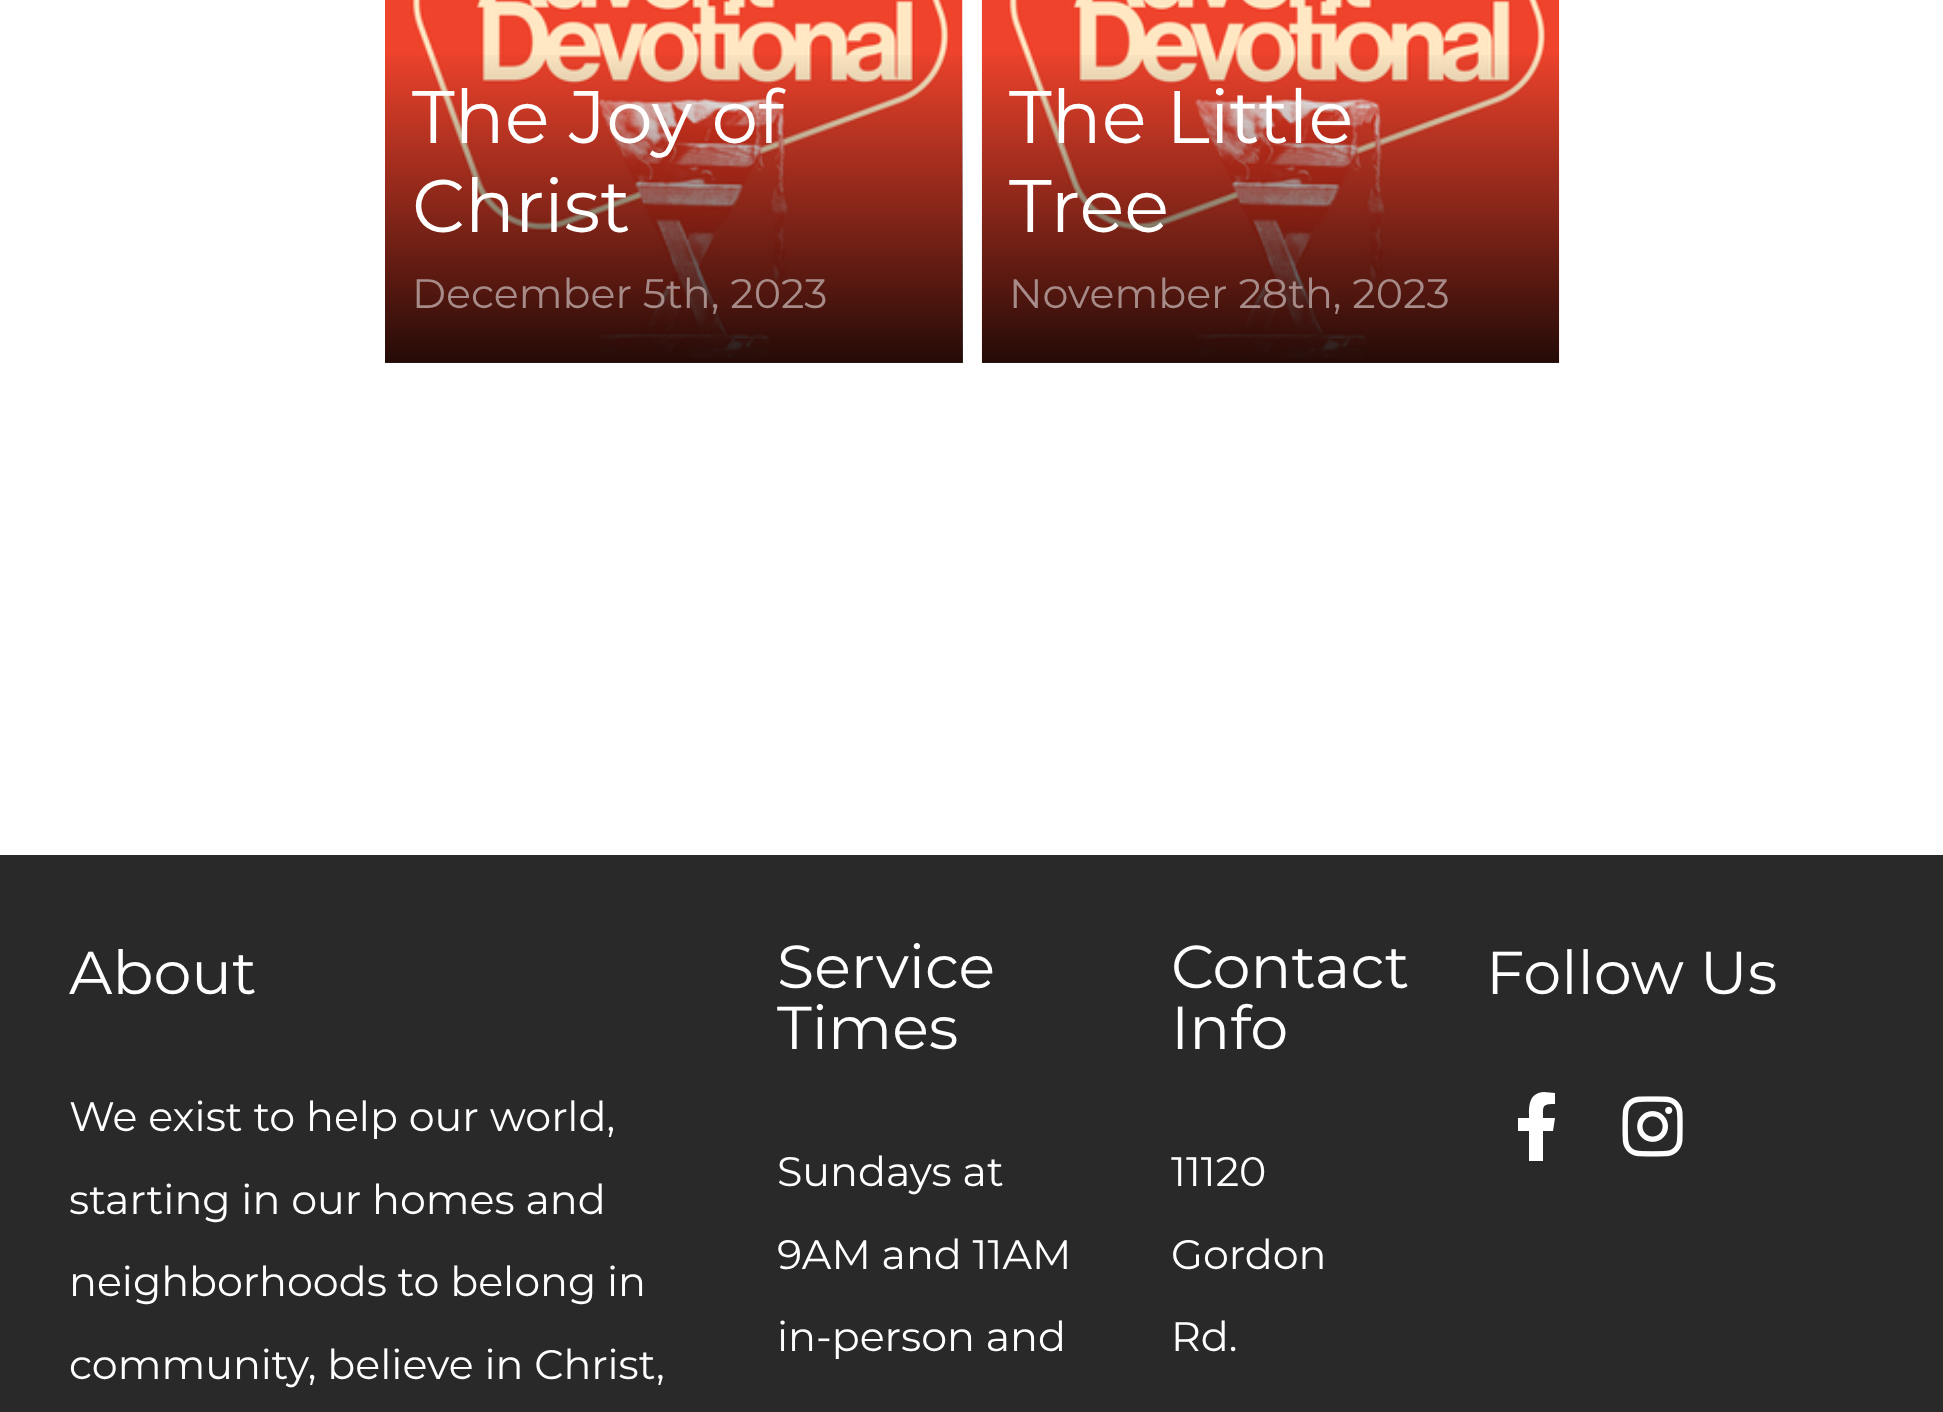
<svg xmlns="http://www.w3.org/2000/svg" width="1943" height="1412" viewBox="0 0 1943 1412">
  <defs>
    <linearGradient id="g1" gradientUnits="userSpaceOnUse" x1="674" y1="47" x2="674" y2="363"><stop offset="0" stop-color="rgb(0,0,0)" stop-opacity="0"/><stop offset="1" stop-color="rgb(0,0,0)" stop-opacity="0.85"/></linearGradient>
    <linearGradient id="g2" gradientUnits="userSpaceOnUse" x1="1271" y1="47" x2="1271" y2="363"><stop offset="0" stop-color="rgb(0,0,0)" stop-opacity="0"/><stop offset="1" stop-color="rgb(0,0,0)" stop-opacity="0.85"/></linearGradient>
  </defs>
  <rect width="100%" height="100%" fill="rgb(42,41,41)"/>
  <rect x="0" y="0" width="1943" height="855" fill="rgb(255,255,255)"/>
  <image x="385" y="0" width="578" height="363" href="pic1.png"/>
  <rect x="385" y="55" width="578" height="308" fill="url(#g1)"/>
  <g font-family="Montserrat" font-size="74.25" fill="rgb(255,255,255)">
    <text>
      <tspan x="412" y="143">The Joy of</tspan>
      <tspan x="412" y="232">Christ</tspan>
    </text>
  </g>
  <text x="412" y="308" font-family="Montserrat" font-size="41.25" fill="rgb(167,139,136)">December 5th, 2023</text>
  <image x="981" y="0" width="579" height="363" href="pic2.png"/>
  <rect x="982" y="55" width="577" height="308" fill="url(#g2)"/>
  <g font-family="Montserrat" font-size="74.25" fill="rgb(255,255,255)">
    <text>
      <tspan x="1009" y="143">The Little</tspan>
      <tspan x="1009" y="232">Tree</tspan>
    </text>
  </g>
  <text x="1009" y="308" font-family="Montserrat" font-size="41.25" fill="rgb(167,139,136)">November 28th, 2023</text>
  <text x="69" y="994" font-family="Montserrat" font-size="60.5" fill="rgb(255,255,255)">About</text>
  <g font-family="Montserrat" font-size="41.25" fill="rgb(255,255,255)">
    <text x="69" y="1131">We exist to help our world,</text>
    <text>
      <tspan x="69" y="1214">starting in our homes and</tspan>
      <tspan x="69" y="1296">neighborhoods to belong in</tspan>
    </text>
    <text x="69" y="1379">community, believe in Christ,</text>
  </g>
  <g font-family="Montserrat" font-size="60.5" fill="rgb(255,255,255)">
    <text>
      <tspan x="777" y="988">Service</tspan>
      <tspan x="777" y="1049">Times</tspan>
    </text>
  </g>
  <g font-family="Montserrat" font-size="41.25" fill="rgb(255,255,255)">
    <text x="777" y="1186">Sundays at</text>
    <text>
      <tspan x="777" y="1269">9AM and 11AM</tspan>
      <tspan x="777" y="1351">in-person and</tspan>
    </text>
  </g>
  <g font-family="Montserrat" font-size="60.5" fill="rgb(255,255,255)">
    <text>
      <tspan x="1171" y="988">Contact</tspan>
      <tspan x="1171" y="1049">Info</tspan>
    </text>
  </g>
  <g font-family="Montserrat" font-size="41.25" fill="rgb(255,255,255)">
    <text x="1171" y="1186">11120</text>
    <text>
      <tspan x="1171" y="1269">Gordon</tspan>
      <tspan x="1171" y="1351">Rd.</tspan>
    </text>
  </g>
  <text x="1486" y="994" font-family="Montserrat" font-size="60.5" fill="rgb(255,255,255)">Follow Us</text>
  <path d="M1553 1131L1555 1118H1543C1543 1106 1542 1104 1555 1104V1093L1544 1092C1528 1093 1529 1107 1529 1118H1518V1131H1529V1161H1543V1131Z" fill="rgb(255,255,255)"/>
  <image x="1622" y="1096" width="61" height="61" href="pic3.png"/>
</svg>
